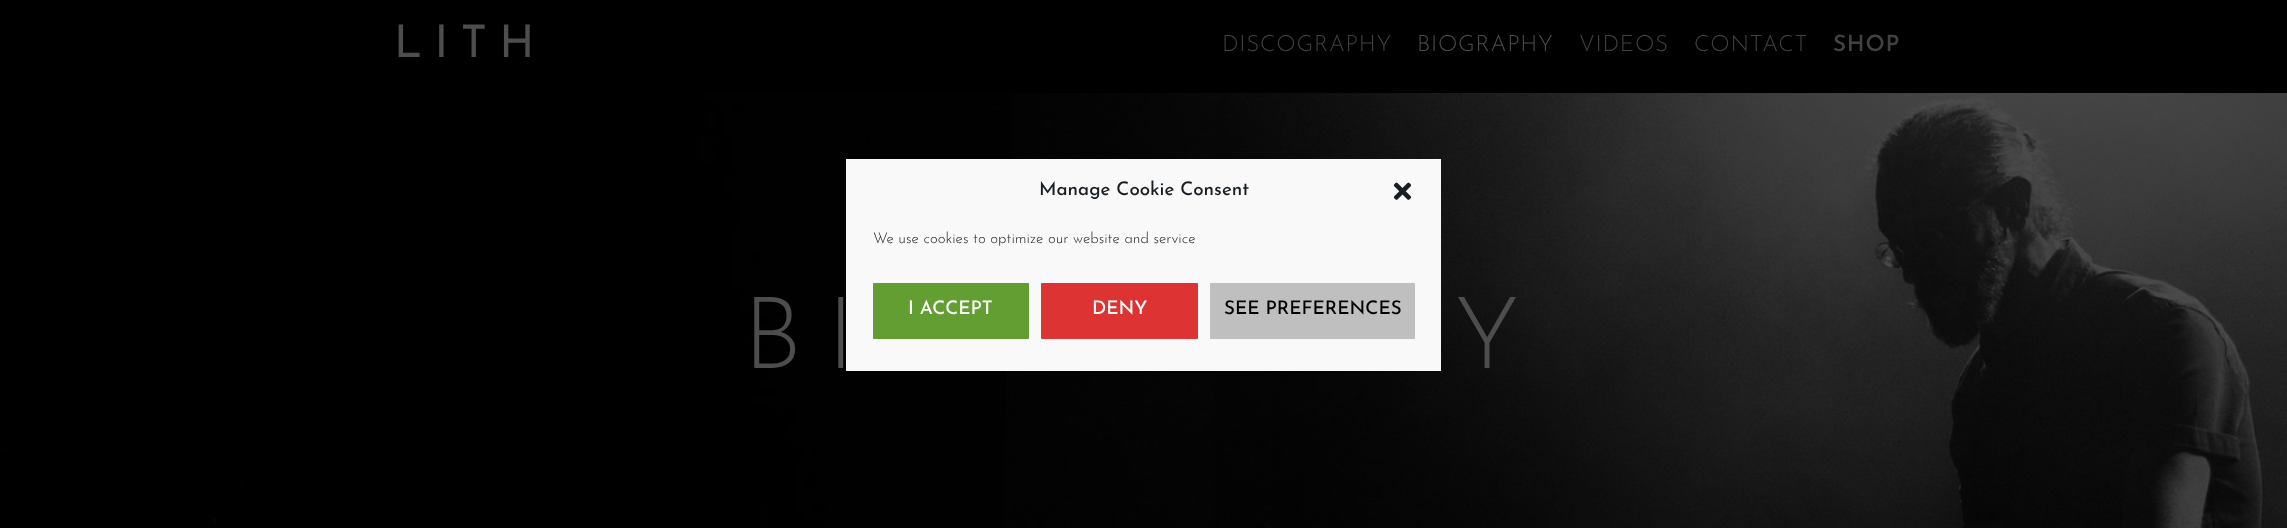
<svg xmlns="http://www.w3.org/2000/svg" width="2287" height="528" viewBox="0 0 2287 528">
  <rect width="100%" height="100%" fill="rgb(255,255,255)"/>
  <rect x="0" y="0" width="2287" height="93" fill="rgb(0,0,0)"/>
  <text x="394" y="57" font-family="Josefin Sans" font-size="45" letter-spacing="12.5" fill="rgb(77,77,77)">LITH</text>
  <text x="1222" y="51" font-family="Josefin Sans" font-size="22.5" font-weight="300" letter-spacing="0.75" fill="rgb(66,66,66)">DISCOGRAPHY</text>
  <text x="1417" y="51" font-family="Josefin Sans" font-size="22.5" font-weight="300" letter-spacing="0.75" fill="rgb(77,77,77)">BIOGRAPHY</text>
  <g font-family="Josefin Sans" font-size="22.5" font-weight="300" letter-spacing="0.75" fill="rgb(66,66,66)">
    <text x="1579" y="51">VIDEOS</text>
    <text x="1694" y="51">CONTACT</text>
  </g>
  <text x="1833" y="51" font-family="Josefin Sans" font-size="22.5" font-weight="600" letter-spacing="0.75" fill="rgb(66,66,66)">SHOP</text>
  <image x="0" y="93" width="2287" height="435" href="pic1.png"/>
  <g font-family="Josefin Sans" font-size="100" font-weight="300" letter-spacing="25" fill="rgb(77,77,77)">
    <text x="743" y="368">BI</text>
    <text x="1454" y="368">Y</text>
  </g>
  <rect x="846" y="159" width="595" height="212" fill="rgb(249,249,249)"/>
  <text x="1039" y="195" font-family="Josefin Sans" font-size="18.75" font-weight="500" fill="rgb(25,30,35)">Manage Cookie Consent</text>
  <image x="1393" y="182" width="19" height="18" href="pic2.png"/>
  <text x="873" y="243" font-family="Josefin Sans" font-size="15" font-weight="300" fill="rgb(25,30,35)">We use cookies to optimize our website and service</text>
  <path d="M873.5 283.5H1028.5V338.5H874C873.5 338.5 873.5 338.5 873.5 338Z" fill="rgb(98,158,49)" stroke="rgb(98,158,49)"/>
  <text x="908" y="314" font-family="Josefin Sans" font-size="18.75" font-weight="500" fill="rgb(255,255,255)">I ACCEPT</text>
  <path d="M1041.5 283.5H1197.5V338.5H1042C1041.5 338.5 1041.5 338.5 1041.5 338Z" fill="rgb(221,51,51)" stroke="rgb(221,51,51)"/>
  <text x="1092" y="314" font-family="Josefin Sans" font-size="18.75" font-weight="500" fill="rgb(255,255,255)">DENY</text>
  <path d="M1210.5 283.5H1414.5V338.5H1211C1210.5 338.5 1210.5 338.5 1210.5 338Z" fill="rgb(191,191,191)" stroke="rgb(191,191,191)"/>
  <text x="1224" y="314" font-family="Josefin Sans" font-size="18.75" font-weight="500" fill="rgb(0,0,0)">SEE PREFERENCES</text>
</svg>
